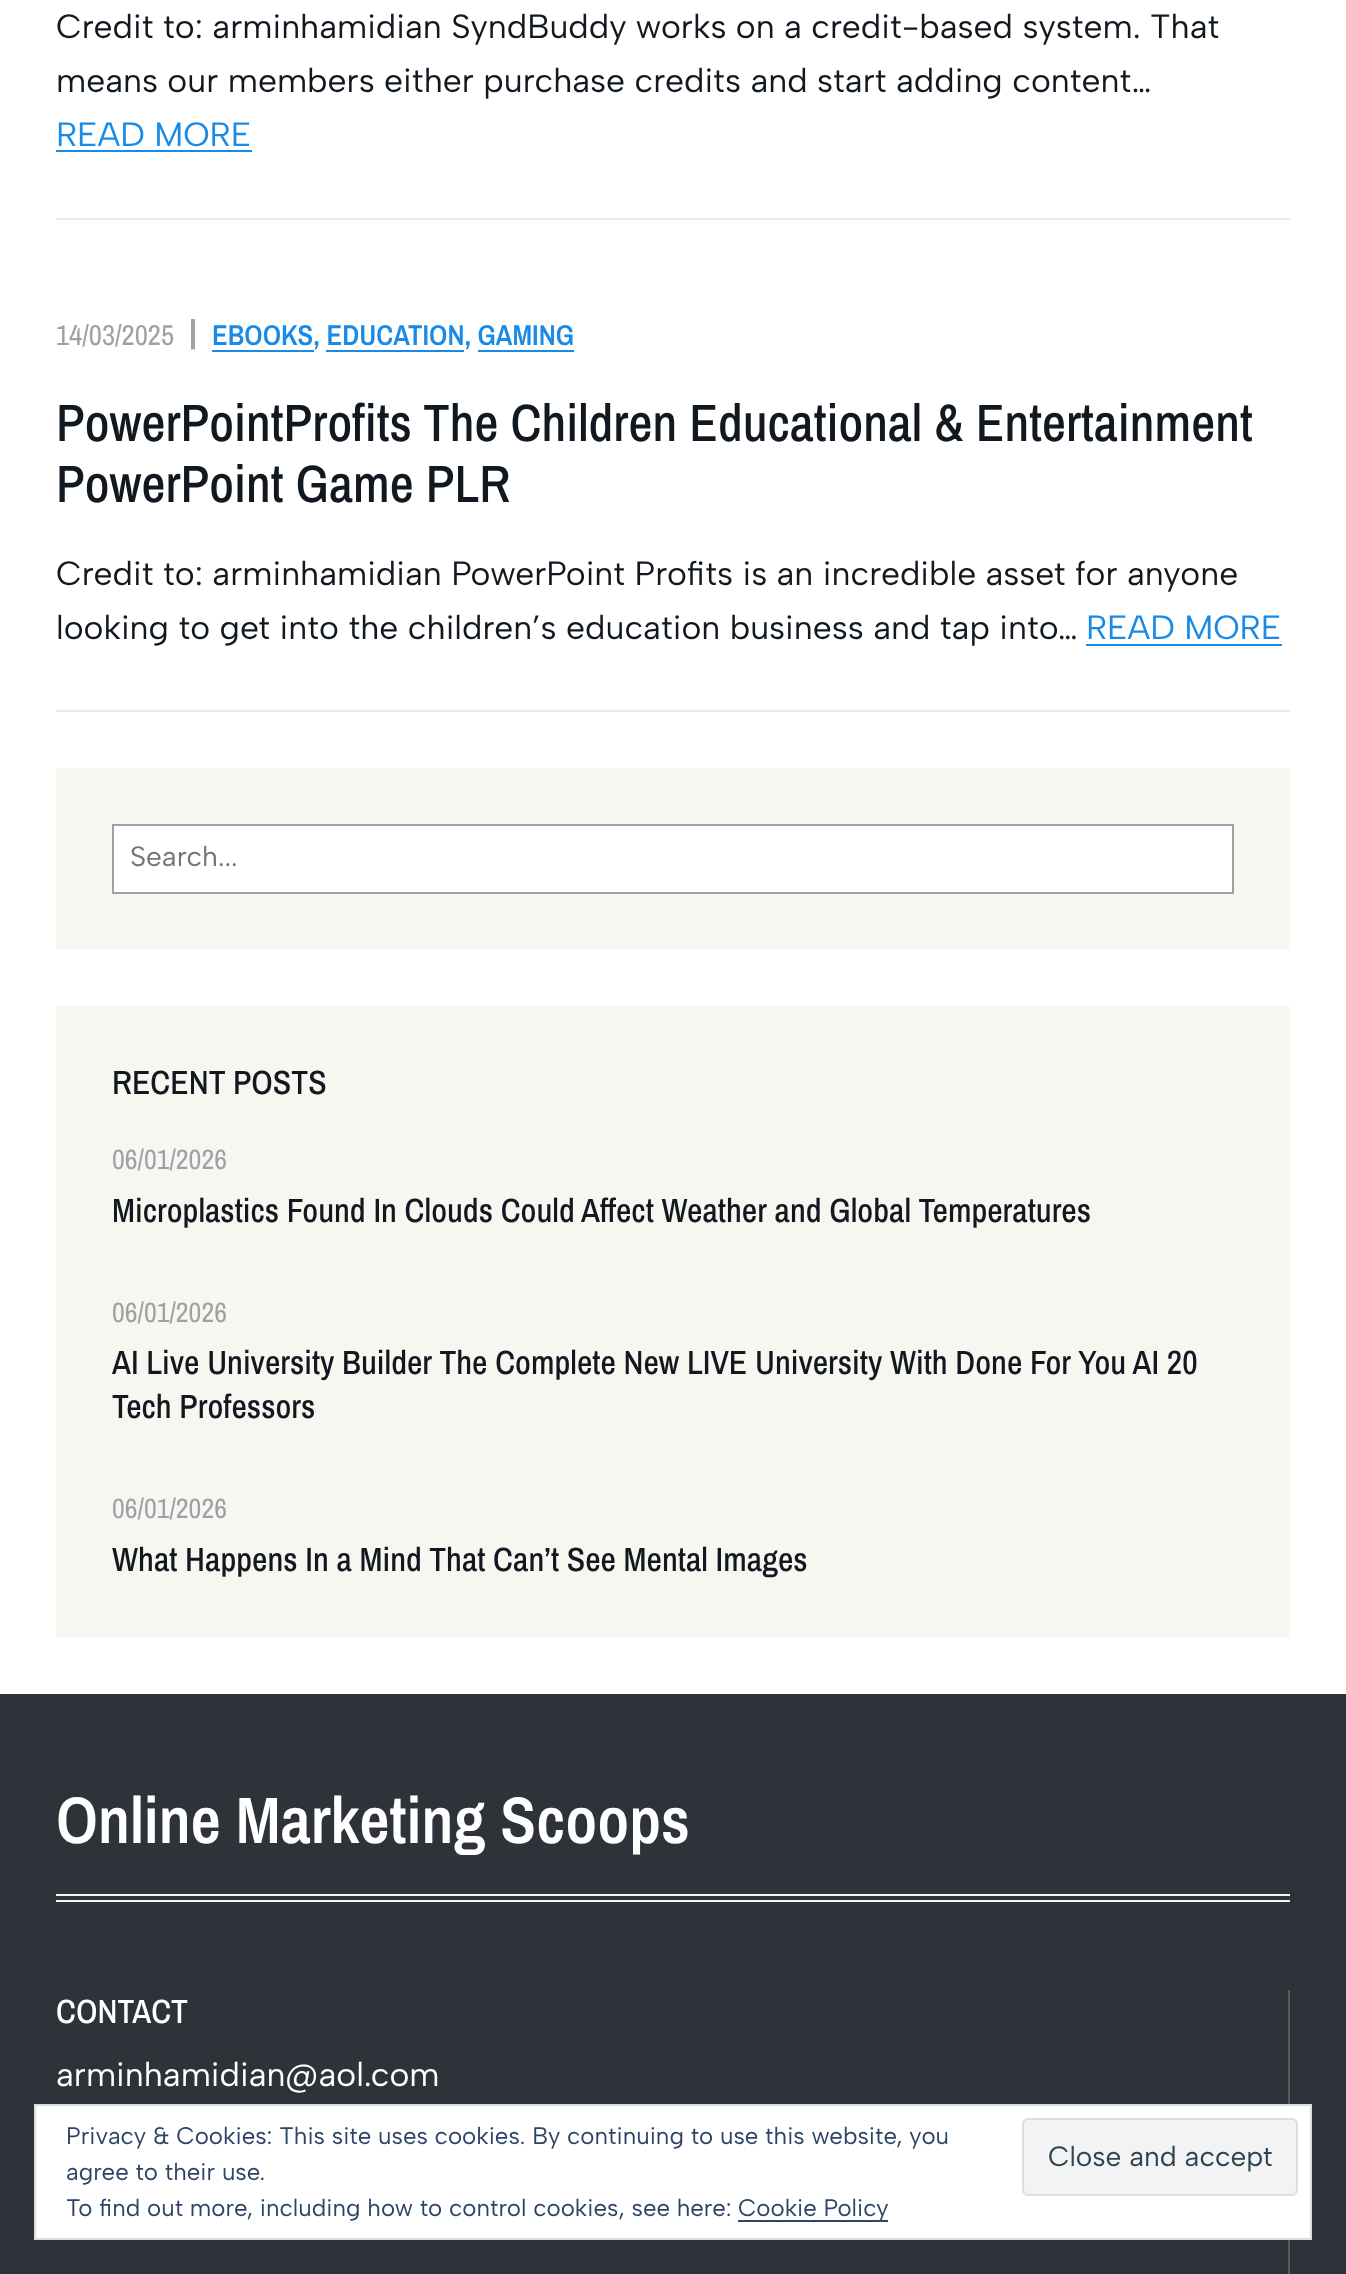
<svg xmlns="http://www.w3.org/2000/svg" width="1346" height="2274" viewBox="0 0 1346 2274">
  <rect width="100%" height="100%" fill="rgb(255,255,255)"/>
  <rect x="56" y="218" width="1234" height="2" fill="rgb(232,235,238)"/>
  <g font-family="Albert Sans" font-size="33.7" fill="rgb(17,24,31)">
    <text>
      <tspan x="56" y="38">Credit to: arminhamidian SyndBuddy works on a credit-based system. That</tspan>
      <tspan x="56" y="92">means our members either purchase credits and start adding content…</tspan>
    </text>
  </g>
  <text x="56" y="146" font-family="Albert Sans" font-size="33.7" fill="rgb(25,138,230)">READ MORE</text>
  <rect x="56" y="150" width="196" height="2" fill="rgb(25,138,230)"/>
  <rect x="56" y="710" width="1234" height="2" fill="rgb(232,235,238)"/>
  <text x="56" y="345" font-family="Archivo Narrow" font-size="28.75" fill="rgb(157,161,165)">14/03/2025</text>
  <text x="188" y="346" font-family="Albert Sans" font-size="33.7" font-weight="600" fill="rgb(157,161,165)">|</text>
  <text x="212" y="345" font-family="Archivo Narrow" font-size="28.75" font-weight="600" fill="rgb(25,138,230)">EBOOKS, EDUCATION, GAMING</text>
  <rect x="212" y="350" width="102" height="2" fill="rgb(25,138,230)"/>
  <rect x="326" y="350" width="138" height="2" fill="rgb(25,138,230)"/>
  <rect x="478" y="350" width="96" height="2" fill="rgb(25,138,230)"/>
  <g font-family="Archivo Narrow" font-size="52.6" font-weight="500" fill="rgb(17,24,31)">
    <text>
      <tspan x="56" y="441">PowerPointProfits The Children Educational &amp; Entertainment</tspan>
      <tspan x="56" y="502">PowerPoint Game PLR</tspan>
    </text>
  </g>
  <g font-family="Albert Sans" font-size="33.7" fill="rgb(17,24,31)">
    <text>
      <tspan x="56" y="585">Credit to: arminhamidian PowerPoint Profits is an incredible asset for anyone</tspan>
      <tspan x="56" y="639">looking to get into the children’s education business and tap into…</tspan>
    </text>
  </g>
  <text x="1086" y="639" font-family="Albert Sans" font-size="33.7" fill="rgb(25,138,230)">READ MORE</text>
  <rect x="1086" y="644" width="196" height="2" fill="rgb(25,138,230)"/>
  <rect x="56" y="768" width="1234" height="182" fill="rgb(247,246,241)"/>
  <rect x="113" y="825" width="1120" height="68" fill="rgb(255,255,255)" stroke="rgb(157,161,165)" stroke-width="2"/>
  <text x="130" y="866" font-family="Albert Sans" font-size="28" fill="rgb(117,117,117)">Search...</text>
  <rect x="56" y="1006" width="1234" height="632" fill="rgb(247,246,241)"/>
  <text x="112" y="1094" font-family="Archivo Narrow" font-size="33.7" font-weight="500" fill="rgb(17,24,31)">RECENT POSTS</text>
  <text x="112" y="1169" font-family="Archivo Narrow" font-size="28" fill="rgb(157,161,165)">06/01/2026</text>
  <text x="112" y="1222" font-family="Archivo Narrow" font-size="33.7" font-weight="500" fill="rgb(17,24,31)">Microplastics Found In Clouds Could Affect Weather and Global Temperatures</text>
  <text x="112" y="1322" font-family="Archivo Narrow" font-size="28" fill="rgb(157,161,165)">06/01/2026</text>
  <g font-family="Archivo Narrow" font-size="33.7" font-weight="500" fill="rgb(17,24,31)">
    <text>
      <tspan x="112" y="1374">AI Live University Builder The Complete New LIVE University With Done For You AI 20</tspan>
      <tspan x="112" y="1418">Tech Professors</tspan>
    </text>
  </g>
  <text x="112" y="1518" font-family="Archivo Narrow" font-size="28" fill="rgb(157,161,165)">06/01/2026</text>
  <text x="112" y="1571" font-family="Archivo Narrow" font-size="33.7" font-weight="500" fill="rgb(17,24,31)">What Happens In a Mind That Can’t See Mental Images</text>
  <rect x="0" y="1694" width="1346" height="580" fill="rgb(46,51,57)"/>
  <text x="56" y="1843" font-family="Archivo Narrow" font-size="65.75" font-weight="600" fill="rgb(255,255,255)">Online Marketing Scoops</text>
  <rect x="56" y="1894" width="1234" height="2" fill="rgb(247,246,241)"/>
  <rect x="56" y="1900" width="1234" height="2" fill="rgb(247,246,241)"/>
  <rect x="1288" y="1990" width="2" height="284" fill="rgb(88,92,97)"/>
  <text x="56" y="2023" font-family="Archivo Narrow" font-size="33.7" font-weight="500" fill="rgb(255,255,255)">CONTACT</text>
  <text x="56" y="2086" font-family="Albert Sans" font-size="33.7" fill="rgb(255,255,255)">arminhamidian@aol.com</text>
  <rect x="35" y="2105" width="1276" height="134" fill="rgb(255,255,255)" stroke="rgb(222,222,222)" stroke-width="2"/>
  <g font-family="Albert Sans" font-size="24" fill="rgb(46,68,103)">
    <text>
      <tspan x="66" y="2144">Privacy &amp; Cookies: This site uses cookies. By continuing to use this website, you</tspan>
      <tspan x="66" y="2180">agree to their use.</tspan>
    </text>
  </g>
  <rect x="1023" y="2119" width="274" height="76" rx="5" fill="rgb(243,243,243)" stroke="rgb(222,222,222)" stroke-width="2"/>
  <text x="1048" y="2166" font-family="Albert Sans" font-size="28" fill="rgb(46,68,83)">Close and accept</text>
  <text x="66" y="2216" font-family="Albert Sans" font-size="24" fill="rgb(46,68,103)">To find out more, including how to control cookies, see here:</text>
  <rect x="738" y="2220" width="150" height="2" fill="rgb(46,68,103)"/>
  <text x="738" y="2216" font-family="Albert Sans" font-size="24" fill="rgb(46,68,103)">Cookie Policy</text>
</svg>
